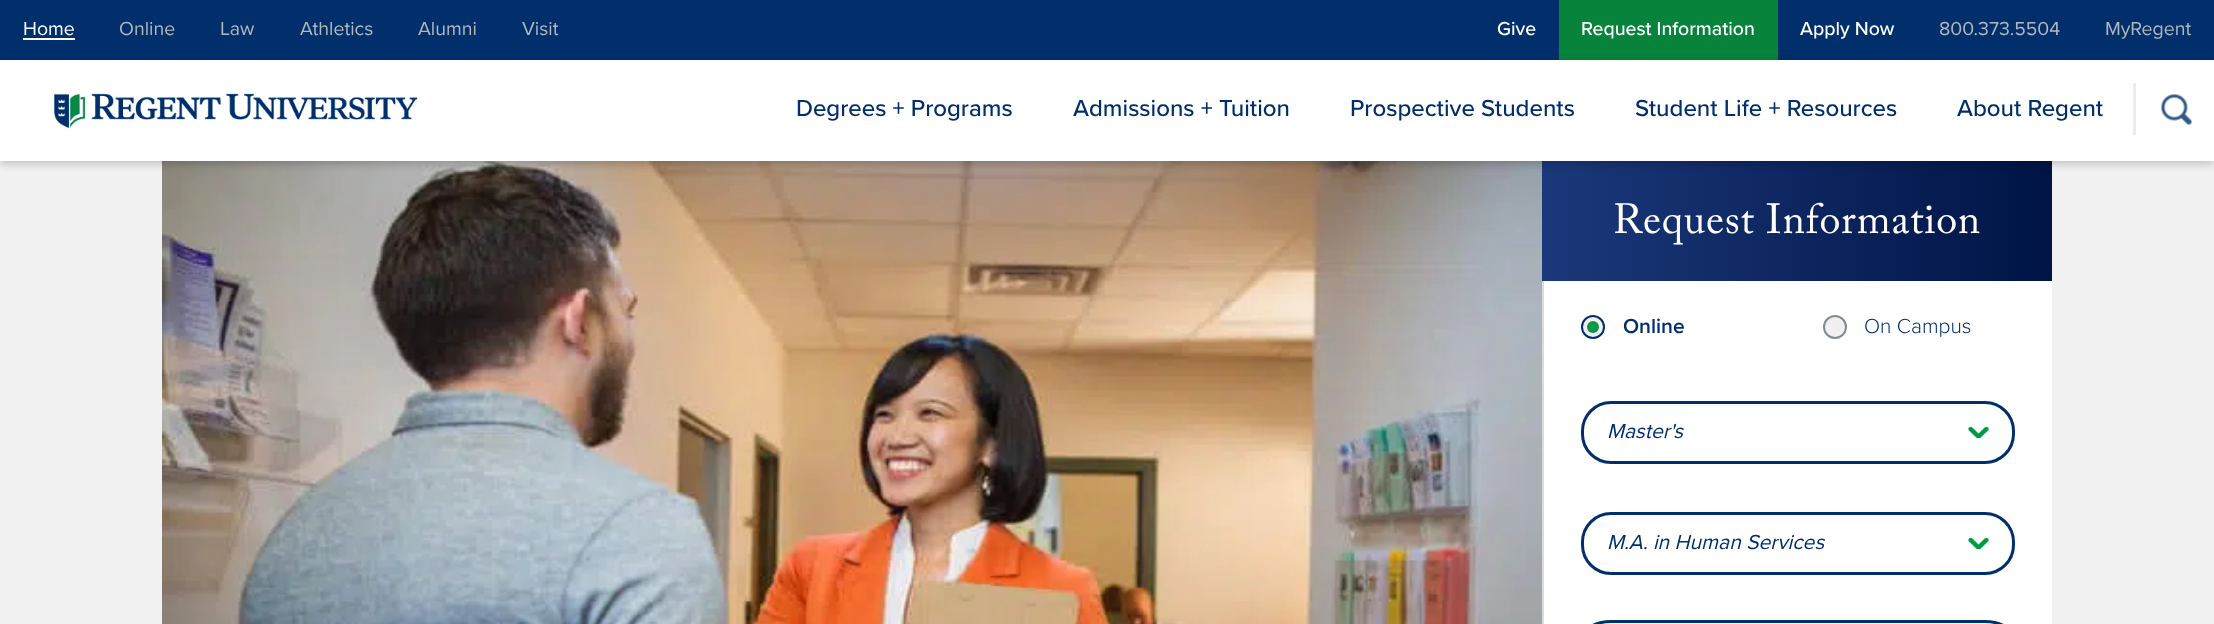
<svg xmlns="http://www.w3.org/2000/svg" width="2214" height="624" viewBox="0 0 2214 624">
  <defs>
    <linearGradient id="g1" gradientUnits="userSpaceOnUse" x1="1542" y1="220" x2="2052" y2="220"><stop offset="0" stop-color="rgb(27,56,122)"/><stop offset="1" stop-color="rgb(0,20,69)"/></linearGradient>
  </defs>
  <rect width="100%" height="100%" fill="rgb(241,241,241)"/>
  <rect x="0" y="0" width="2214" height="60" fill="rgb(0,47,108)"/>
  <text x="23" y="35" font-family="Proxima Nova" font-size="19.5" fill="rgb(255,255,255)">Home</text>
  <rect x="23" y="38" width="52" height="2" fill="rgb(255,255,255)"/>
  <g font-family="Proxima Nova" font-size="19.5" fill="rgb(178,183,187)">
    <text x="119" y="35">Online</text>
    <text x="220" y="35">Law</text>
    <text x="300" y="35">Athletics</text>
    <text x="418" y="35">Alumni</text>
    <text x="522" y="35">Visit</text>
  </g>
  <text x="1497" y="35" font-family="Proxima Nova" font-size="19.5" font-weight="500" fill="rgb(255,255,255)">Give</text>
  <rect x="1559" y="0" width="219" height="60" fill="rgb(7,131,60)"/>
  <g font-family="Proxima Nova" font-size="19.5" font-weight="500" fill="rgb(255,255,255)">
    <text x="1581" y="35">Request Information</text>
    <text x="1800" y="35">Apply Now</text>
  </g>
  <g font-family="Proxima Nova" font-size="19.5" fill="rgb(178,183,187)">
    <text x="1939" y="35">800.373.5504</text>
    <text x="2105" y="35">MyRegent</text>
  </g>
  <image x="162" y="161" width="1380" height="463" href="pic3.png"/>
  <rect x="1542" y="161" width="510" height="120" fill="url(#g1)"/>
  <rect x="0" y="63" width="2214" height="101" fill="rgba(0,0,0,0.2)" filter="blur(4px)"/>
  <rect x="0" y="60" width="2214" height="101" fill="rgb(255,255,255)"/>
  <image x="54" y="93" width="364" height="36" href="pic1.png"/>
  <g font-family="Proxima Nova" font-size="24" font-weight="500" fill="rgb(0,47,108)">
    <text x="796" y="116">Degrees + Programs</text>
    <text x="1073" y="116">Admissions + Tuition</text>
    <text x="1350" y="116">Prospective Students</text>
    <text x="1635" y="116">Student Life + Resources</text>
    <text x="1957" y="116">About Regent</text>
  </g>
  <rect x="2133" y="83" width="3" height="52" fill="rgb(236,237,237)"/>
  <image x="2161" y="94" width="31" height="31" href="pic2.png"/>
  <rect x="1544" y="281" width="508" height="343" fill="rgb(255,255,255)"/>
  <text x="1613" y="233" font-family="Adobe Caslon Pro" font-size="42" letter-spacing="0.8" fill="rgb(255,255,255)">Request Information</text>
  <rect x="1542" y="281" width="2" height="343" fill="rgb(217,219,220)"/>
  <circle cx="1593" cy="327" r="11" fill="rgb(240,240,240)" stroke="rgb(0,47,108)" stroke-width="2"/>
  <circle cx="1593" cy="327" r="6" fill="rgb(6,153,72)"/>
  <text x="1623" y="333" font-family="Proxima Nova" font-size="21" font-weight="600" fill="rgb(0,47,108)">Online</text>
  <circle cx="1835" cy="327" r="11" fill="rgb(240,240,240)" stroke="rgb(128,139,148)" stroke-width="2"/>
  <text x="1864" y="333" font-family="Proxima Nova" font-size="21" font-weight="300" fill="rgb(0,47,108)">On Campus</text>
  <rect x="1582.5" y="402.5" width="431" height="60" rx="28.5" fill="none" stroke="rgb(0,47,108)" stroke-width="3"/>
  <text x="1607" y="438" font-family="Proxima Nova" font-size="21" font-style="italic" fill="rgb(0,47,108)">Master's</text>
  <image x="1968" y="426" width="21" height="12" href="pic4.png"/>
  <rect x="1582.5" y="513.5" width="431" height="60" rx="28.5" fill="none" stroke="rgb(0,47,108)" stroke-width="3"/>
  <text x="1607" y="549" font-family="Proxima Nova" font-size="21" font-style="italic" fill="rgb(0,47,108)">M.A. in Human Services</text>
  <image x="1968" y="537" width="21" height="12" href="pic4.png"/>
  <rect x="1582.5" y="621.5" width="431" height="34" rx="28.5" fill="none" stroke="rgb(0,47,108)" stroke-width="3"/>
</svg>
